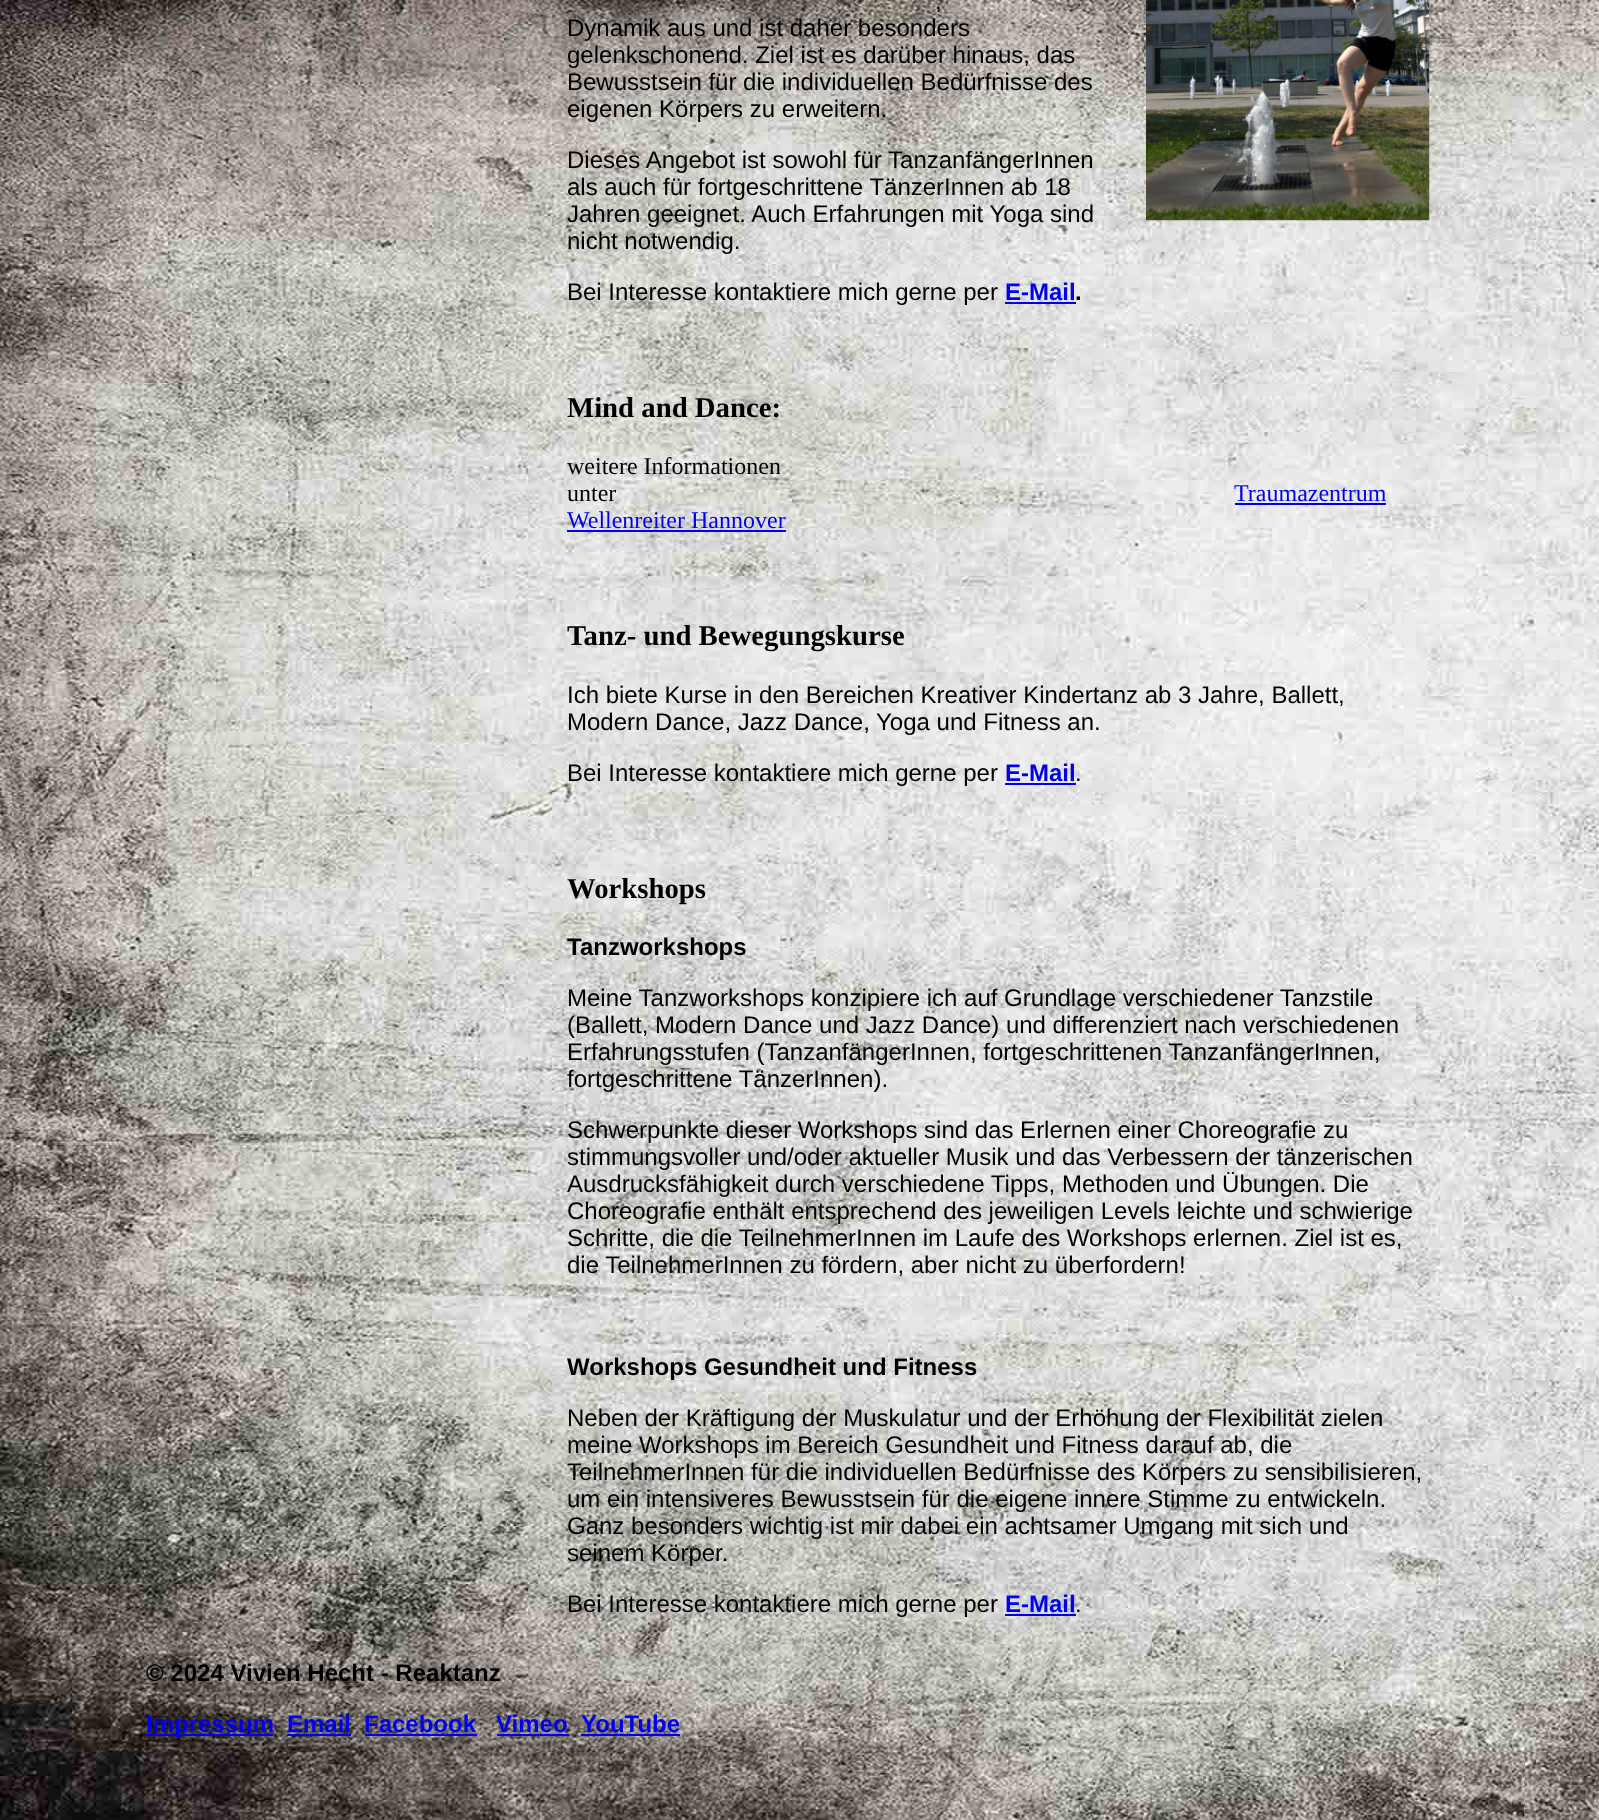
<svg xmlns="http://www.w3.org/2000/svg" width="1599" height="1820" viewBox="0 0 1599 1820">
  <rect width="100%" height="100%" fill="rgb(255,255,255)"/>
  <image x="0" y="0" width="1599" height="1820" href="pic1.png"/>
  <g font-family="Liberation Sans" font-size="24" fill="rgb(0,0,0)">
    <text x="935" y="9">,</text>
    <text>
      <tspan x="567" y="36">Dynamik aus und ist daher besonders</tspan>
      <tspan x="567" y="63">gelenkschonend. Ziel ist es darüber hinaus, das</tspan>
      <tspan x="567" y="90">Bewusstsein für die individuellen Bedürfnisse des</tspan>
      <tspan x="567" y="117">eigenen Körpers zu erweitern.</tspan>
    </text>
  </g>
  <image x="1146" y="0" width="284" height="221" href="pic2.png"/>
  <g font-family="Liberation Sans" font-size="24" fill="rgb(0,0,0)">
    <text>
      <tspan x="567" y="168">Dieses Angebot ist sowohl für TanzanfängerInnen</tspan>
      <tspan x="567" y="195">als auch für fortgeschrittene TänzerInnen ab 18</tspan>
      <tspan x="567" y="222">Jahren geeignet. Auch Erfahrungen mit Yoga sind</tspan>
      <tspan x="567" y="249">nicht notwendig.</tspan>
    </text>
    <text x="567" y="300">Bei Interesse kontaktiere mich gerne per</text>
  </g>
  <text x="1005" y="300" font-family="Liberation Sans" font-size="24" font-weight="bold" fill="rgb(0,0,238)">E-Mail</text>
  <text x="1075" y="300" font-family="Liberation Sans" font-size="24" font-weight="bold" fill="rgb(0,0,0)">.</text>
  <rect x="1005" y="302" width="71" height="2" fill="rgb(0,0,238)"/>
  <text x="567" y="417" font-family="Liberation Serif" font-size="28.75" font-weight="bold" fill="rgb(0,0,0)">Mind and Dance:</text>
  <g font-family="Liberation Serif" font-size="24" fill="rgb(0,0,0)">
    <text>
      <tspan x="567" y="474">weitere Informationen</tspan>
      <tspan x="567" y="501">unter</tspan>
    </text>
  </g>
  <text x="1234" y="501" font-family="Liberation Serif" font-size="24" fill="rgb(0,0,238)">Traumazentrum</text>
  <rect x="1235" y="503" width="151" height="2" fill="rgb(0,0,238)"/>
  <text x="567" y="528" font-family="Liberation Serif" font-size="24" fill="rgb(0,0,238)">Wellenreiter Hannover</text>
  <rect x="567" y="530" width="219" height="2" fill="rgb(0,0,238)"/>
  <text x="567" y="645" font-family="Liberation Serif" font-size="28.75" font-weight="bold" fill="rgb(0,0,0)">Tanz- und Bewegungskurse</text>
  <g font-family="Liberation Sans" font-size="24" fill="rgb(0,0,0)">
    <text>
      <tspan x="567" y="703">Ich biete Kurse in den Bereichen Kreativer Kindertanz ab 3 Jahre, Ballett,</tspan>
      <tspan x="567" y="730">Modern Dance, Jazz Dance, Yoga und Fitness an.</tspan>
    </text>
    <text x="567" y="781">Bei Interesse kontaktiere mich gerne per</text>
  </g>
  <text x="1005" y="781" font-family="Liberation Sans" font-size="24" font-weight="bold" fill="rgb(0,0,238)">E-Mail</text>
  <text x="1075" y="781" font-family="Liberation Sans" font-size="24" fill="rgb(0,0,0)">.</text>
  <rect x="1005" y="783" width="71" height="2" fill="rgb(0,0,238)"/>
  <text x="567" y="898" font-family="Liberation Serif" font-size="28.75" font-weight="bold" fill="rgb(0,0,0)">Workshops</text>
  <text x="567" y="955" font-family="Liberation Sans" font-size="24" font-weight="bold" fill="rgb(0,0,0)">Tanzworkshops</text>
  <g font-family="Liberation Sans" font-size="24" fill="rgb(0,0,0)">
    <text>
      <tspan x="567" y="1006">Meine Tanzworkshops konzipiere ich auf Grundlage verschiedener Tanzstile</tspan>
      <tspan x="567" y="1033">(Ballett, Modern Dance und Jazz Dance) und differenziert nach verschiedenen</tspan>
      <tspan x="567" y="1060">Erfahrungsstufen (TanzanfängerInnen, fortgeschrittenen TanzanfängerInnen,</tspan>
      <tspan x="567" y="1087">fortgeschrittene TänzerInnen).</tspan>
    </text>
    <text>
      <tspan x="567" y="1138">Schwerpunkte dieser Workshops sind das Erlernen einer Choreografie zu</tspan>
      <tspan x="567" y="1165">stimmungsvoller und/oder aktueller Musik und das Verbessern der tänzerischen</tspan>
      <tspan x="567" y="1192">Ausdrucksfähigkeit durch verschiedene Tipps, Methoden und Übungen. Die</tspan>
      <tspan x="567" y="1219">Choreografie enthält entsprechend des jeweiligen Levels leichte und schwierige</tspan>
      <tspan x="567" y="1246">Schritte, die die TeilnehmerInnen im Laufe des Workshops erlernen. Ziel ist es,</tspan>
      <tspan x="567" y="1273">die TeilnehmerInnen zu fördern, aber nicht zu überfordern!</tspan>
    </text>
  </g>
  <text x="567" y="1375" font-family="Liberation Sans" font-size="24" font-weight="bold" fill="rgb(0,0,0)">Workshops Gesundheit und Fitness</text>
  <g font-family="Liberation Sans" font-size="24" fill="rgb(0,0,0)">
    <text>
      <tspan x="567" y="1426">Neben der Kräftigung der Muskulatur und der Erhöhung der Flexibilität zielen</tspan>
      <tspan x="567" y="1453">meine Workshops im Bereich Gesundheit und Fitness darauf ab, die</tspan>
      <tspan x="567" y="1480">TeilnehmerInnen für die individuellen Bedürfnisse des Körpers zu sensibilisieren,</tspan>
      <tspan x="567" y="1507">um ein intensiveres Bewusstsein für die eigene innere Stimme zu entwickeln.</tspan>
      <tspan x="567" y="1534">Ganz besonders wichtig ist mir dabei ein achtsamer Umgang mit sich und</tspan>
      <tspan x="567" y="1561">seinem Körper.</tspan>
    </text>
    <text x="567" y="1612">Bei Interesse kontaktiere mich gerne per</text>
  </g>
  <text x="1005" y="1612" font-family="Liberation Sans" font-size="24" font-weight="bold" fill="rgb(0,0,238)">E-Mail</text>
  <text x="1075" y="1612" font-family="Liberation Sans" font-size="24" fill="rgb(0,0,0)">.</text>
  <rect x="1005" y="1614" width="71" height="2" fill="rgb(0,0,238)"/>
  <text x="146" y="1681" font-family="Liberation Sans" font-size="24" font-weight="bold" fill="rgb(0,0,0)">© 2024 Vivien Hecht - Reaktanz</text>
  <rect x="146" y="1734" width="127" height="2" fill="rgb(0,0,238)"/>
  <g font-family="Liberation Sans" font-size="24" font-weight="bold" fill="rgb(0,0,238)">
    <text x="146" y="1732">Impressum</text>
    <text x="287" y="1732">Email</text>
  </g>
  <rect x="287" y="1734" width="64" height="2" fill="rgb(0,0,238)"/>
  <text x="364" y="1732" font-family="Liberation Sans" font-size="24" font-weight="bold" fill="rgb(0,0,238)">Facebook</text>
  <rect x="365" y="1734" width="112" height="2" fill="rgb(0,0,238)"/>
  <text x="496" y="1732" font-family="Liberation Sans" font-size="24" font-weight="bold" fill="rgb(0,0,238)">Vimeo</text>
  <rect x="497" y="1734" width="72" height="2" fill="rgb(0,0,238)"/>
  <text x="581" y="1732" font-family="Liberation Sans" font-size="24" font-weight="bold" fill="rgb(0,0,238)">YouTube</text>
  <rect x="581" y="1734" width="99" height="2" fill="rgb(0,0,238)"/>
</svg>
